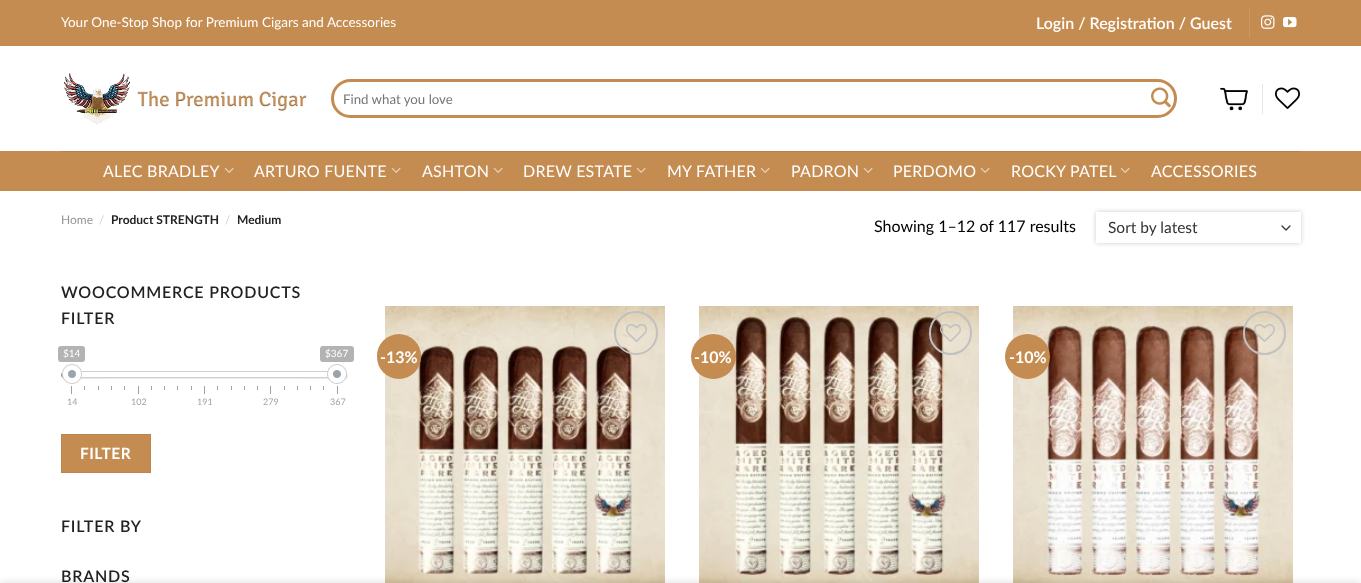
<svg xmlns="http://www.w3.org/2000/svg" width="1361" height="583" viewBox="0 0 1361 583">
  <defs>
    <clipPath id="clip1"><path d="M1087 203H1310V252H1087ZM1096 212H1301V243H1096Z" clip-rule="evenodd"/></clipPath>
  </defs>
  <rect width="100%" height="100%" fill="rgb(255,255,255)"/>
  <rect x="0" y="0" width="1361" height="46" fill="rgb(197,140,81)"/>
  <text x="61" y="27" font-family="Lato" font-size="13.5" fill="rgb(255,255,255)">Your One-Stop Shop for Premium Cigars and Accessories</text>
  <text x="1036" y="29" font-family="Lato" font-size="16" font-weight="600" fill="rgb(255,255,255)">Login / Registration / Guest</text>
  <rect x="1249" y="8" width="1" height="30" fill="rgb(203,152,98)"/>
  <image x="1261" y="15" width="14" height="14" href="pic1.png"/>
  <image x="1283" y="17" width="14" height="11" href="pic2.png"/>
  <image x="64" y="73" width="243" height="52" href="pic3.png"/>
  <rect x="332.5" y="80.5" width="843" height="36" rx="18" fill="none" stroke="rgb(197,140,81)" stroke-width="3"/>
  <text x="343" y="104" font-family="Lato" font-size="13.25" fill="rgb(117,117,117)">Find what you love</text>
  <image x="1151" y="87" width="20" height="21" href="pic4.png"/>
  <image x="1220" y="87" width="28" height="24" href="pic5.png"/>
  <rect x="1262" y="84" width="1" height="30" fill="rgb(230,230,230)"/>
  <image x="1275" y="87" width="25" height="22" href="pic6.png"/>
  <rect x="0" y="151" width="1361" height="40" fill="rgb(197,140,81)"/>
  <rect x="61" y="151" width="1240" height="1" fill="rgb(181,129,76)"/>
  <text x="103" y="177" font-family="Lato" font-size="16" letter-spacing="0.25" fill="rgb(255,255,255)">ALEC BRADLEY</text>
  <image x="224" y="167" width="10" height="6" href="pic7.png"/>
  <text x="254" y="177" font-family="Lato" font-size="16" letter-spacing="0.25" fill="rgb(255,255,255)">ARTURO FUENTE</text>
  <image x="391" y="167" width="10" height="6" href="pic7.png"/>
  <text x="422" y="177" font-family="Lato" font-size="16" letter-spacing="0.25" fill="rgb(255,255,255)">ASHTON</text>
  <image x="493" y="167" width="10" height="6" href="pic7.png"/>
  <text x="523" y="177" font-family="Lato" font-size="16" letter-spacing="0.25" fill="rgb(255,255,255)">DREW ESTATE</text>
  <image x="636" y="167" width="10" height="6" href="pic7.png"/>
  <text x="667" y="177" font-family="Lato" font-size="16" letter-spacing="0.25" fill="rgb(255,255,255)">MY FATHER</text>
  <image x="760" y="167" width="10" height="6" href="pic7.png"/>
  <text x="791" y="177" font-family="Lato" font-size="16" letter-spacing="0.25" fill="rgb(255,255,255)">PADRON</text>
  <image x="863" y="167" width="10" height="6" href="pic7.png"/>
  <text x="893" y="177" font-family="Lato" font-size="16" letter-spacing="0.25" fill="rgb(255,255,255)">PERDOMO</text>
  <image x="980" y="167" width="10" height="6" href="pic7.png"/>
  <text x="1011" y="177" font-family="Lato" font-size="16" letter-spacing="0.25" fill="rgb(255,255,255)">ROCKY PATEL</text>
  <image x="1120" y="167" width="10" height="6" href="pic7.png"/>
  <text x="1151" y="177" font-family="Lato" font-size="16" letter-spacing="0.25" fill="rgb(255,255,255)">ACCESSORIES</text>
  <text x="61" y="224" font-family="Lato" font-size="12" fill="rgb(148,148,148)">Home</text>
  <text x="99" y="224" font-family="Lato" font-size="12" font-weight="300" fill="rgb(178,178,178)">/</text>
  <text x="111" y="224" font-family="Lato" font-size="12" font-weight="bold" fill="rgb(34,34,34)">Product STRENGTH</text>
  <text x="225" y="224" font-family="Lato" font-size="12" font-weight="300" fill="rgb(178,178,178)">/</text>
  <text x="237" y="224" font-family="Lato" font-size="12" font-weight="bold" fill="rgb(34,34,34)">Medium</text>
  <text x="874" y="232" font-family="Lato" font-size="16" fill="rgb(0,0,0)">Showing 1–12 of 117 results</text>
  <g clip-path="url(#clip1)">
    <rect x="1096" y="212" width="205" height="31" fill="rgb(204,204,204)" filter="blur(2.5px)"/>
  </g>
  <path d="M1282 226L1286 230L1290 226" fill="none" stroke="rgb(51,51,51)" stroke-width="1.3" stroke-linecap="round" stroke-linejoin="round"/>
  <text x="1108" y="233" font-family="Lato" font-size="15.5" fill="rgb(51,51,51)">Sort by latest</text>
  <g font-family="Lato" font-size="16" font-weight="600" letter-spacing="0.8" fill="rgb(34,34,34)">
    <text>
      <tspan x="61" y="298">WOOCOMMERCE PRODUCTS</tspan>
      <tspan x="61" y="324">FILTER</tspan>
    </text>
  </g>
  <rect x="58" y="346" width="27" height="16" rx="3" fill="rgb(179,179,179)"/>
  <text x="63" y="357" font-family="Lato" font-size="10" fill="rgb(255,255,255)">$14</text>
  <rect x="320" y="346" width="34" height="16" rx="3" fill="rgb(179,179,179)"/>
  <text x="325" y="357" font-family="Lato" font-size="10" fill="rgb(255,255,255)">$367</text>
  <image x="61" y="372" width="31" height="7" href="pic8.png"/>
  <image x="92" y="378" width="230" height="1" href="pic9.png"/>
  <image x="321" y="372" width="27" height="7" href="pic10.png"/>
  <image x="73" y="371" width="263" height="8" href="pic12.png"/>
  <image x="62" y="364" width="20" height="20" href="pic11.png"/>
  <image x="327" y="364" width="20" height="20" href="pic13.png"/>
  <rect x="71" y="386" width="1" height="8" fill="rgb(153,164,172)"/>
  <rect x="84" y="386" width="1" height="4" fill="rgb(153,164,172)"/>
  <rect x="98" y="386" width="1" height="4" fill="rgb(153,164,172)"/>
  <rect x="111" y="386" width="1" height="4" fill="rgb(153,164,172)"/>
  <rect x="124" y="386" width="1" height="4" fill="rgb(153,164,172)"/>
  <rect x="138" y="386" width="1" height="8" fill="rgb(153,164,172)"/>
  <rect x="151" y="386" width="1" height="4" fill="rgb(153,164,172)"/>
  <rect x="164" y="386" width="1" height="4" fill="rgb(153,164,172)"/>
  <rect x="177" y="386" width="1" height="4" fill="rgb(153,164,172)"/>
  <rect x="191" y="386" width="1" height="4" fill="rgb(153,164,172)"/>
  <rect x="204" y="386" width="1" height="8" fill="rgb(153,164,172)"/>
  <rect x="217" y="386" width="1" height="4" fill="rgb(153,164,172)"/>
  <rect x="231" y="386" width="1" height="4" fill="rgb(153,164,172)"/>
  <rect x="244" y="386" width="1" height="4" fill="rgb(153,164,172)"/>
  <rect x="257" y="386" width="1" height="4" fill="rgb(153,164,172)"/>
  <rect x="270" y="386" width="1" height="8" fill="rgb(153,164,172)"/>
  <rect x="284" y="386" width="1" height="4" fill="rgb(153,164,172)"/>
  <rect x="297" y="386" width="1" height="4" fill="rgb(153,164,172)"/>
  <rect x="310" y="386" width="1" height="4" fill="rgb(153,164,172)"/>
  <rect x="323" y="386" width="1" height="4" fill="rgb(153,164,172)"/>
  <rect x="337" y="386" width="1" height="8" fill="rgb(153,164,172)"/>
  <g font-family="Lato" font-size="9" fill="rgb(153,164,172)">
    <text x="67" y="405">14</text>
    <text x="131" y="405">102</text>
    <text x="197" y="405">191</text>
    <text x="263" y="405">279</text>
    <text x="330" y="405">367</text>
  </g>
  <rect x="61.5" y="434.5" width="89" height="38" fill="rgb(197,140,81)" stroke="rgb(187,133,77)"/>
  <text x="80" y="459" font-family="Lato" font-size="15.5" font-weight="bold" letter-spacing="0.5" fill="rgb(255,255,255)">FILTER</text>
  <g font-family="Lato" font-size="16" font-weight="600" letter-spacing="0.8" fill="rgb(34,34,34)">
    <text x="61" y="532">FILTER BY</text>
    <text x="61" y="582">BRANDS</text>
  </g>
  <image x="385" y="306" width="280" height="277" href="pic14.png"/>
  <circle cx="636" cy="333" r="21" fill="none" stroke="rgb(192,192,192)" stroke-width="2"/>
  <image x="626" y="324" width="21" height="18" href="pic15.png"/>
  <rect x="377" y="334" width="44" height="45" rx="22" fill="rgb(197,140,81)"/>
  <text x="380" y="363" font-family="Lato" font-size="16" font-weight="bold" fill="rgb(255,255,255)">-13%</text>
  <image x="699" y="306" width="280" height="277" href="pic16.png"/>
  <rect x="930" y="312" width="41" height="42" rx="20.5" fill="none" stroke="rgb(192,192,192)" stroke-width="2"/>
  <image x="940" y="324" width="21" height="18" href="pic17.png"/>
  <circle cx="713.5" cy="356.5" r="22.5" fill="rgb(197,140,81)"/>
  <text x="694" y="363" font-family="Lato" font-size="16" font-weight="bold" fill="rgb(255,255,255)">-10%</text>
  <image x="1013" y="306" width="280" height="277" href="pic18.png"/>
  <rect x="1244" y="312" width="41" height="42" rx="20.5" fill="none" stroke="rgb(192,192,192)" stroke-width="2"/>
  <image x="1254" y="324" width="21" height="18" href="pic19.png"/>
  <circle cx="1027.5" cy="356.5" r="22.5" fill="rgb(197,140,81)"/>
  <text x="1009" y="363" font-family="Lato" font-size="16" font-weight="bold" fill="rgb(255,255,255)">-10%</text>
  <rect x="0" y="583" width="1361" height="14" fill="rgba(0,0,0,0.14)" filter="blur(4.5px)"/>
</svg>
